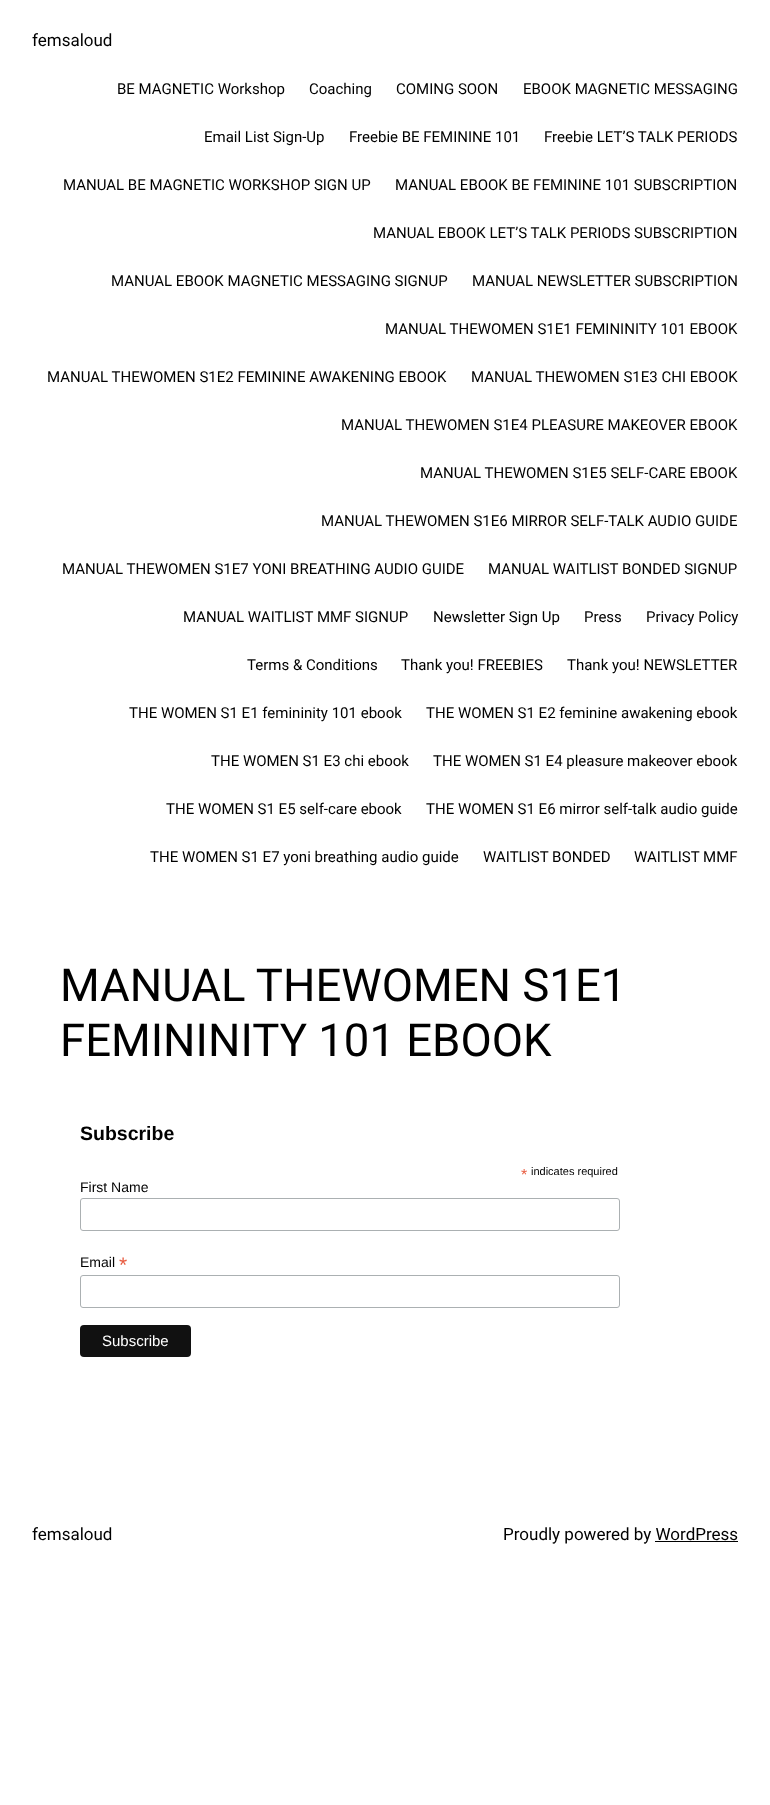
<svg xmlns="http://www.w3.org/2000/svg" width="770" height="1805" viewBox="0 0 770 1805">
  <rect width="100%" height="100%" fill="rgb(255,255,255)"/>
  <text x="32" y="46" font-family="Roboto" font-size="17" fill="rgb(0,0,0)">femsaloud</text>
  <g font-family="Roboto" font-size="15" fill="rgb(0,0,0)">
    <text x="117" y="94">BE MAGNETIC Workshop</text>
    <text x="309" y="94">Coaching</text>
    <text x="396" y="94">COMING SOON</text>
    <text x="523" y="94">EBOOK MAGNETIC MESSAGING</text>
    <text x="204" y="142">Email List Sign-Up</text>
    <text x="349" y="142">Freebie BE FEMININE 101</text>
    <text x="544" y="142">Freebie LET’S TALK PERIODS</text>
    <text x="63" y="190">MANUAL BE MAGNETIC WORKSHOP SIGN UP</text>
    <text x="395" y="190">MANUAL EBOOK BE FEMININE 101 SUBSCRIPTION</text>
    <text x="373" y="238">MANUAL EBOOK LET’S TALK PERIODS SUBSCRIPTION</text>
    <text x="111" y="286">MANUAL EBOOK MAGNETIC MESSAGING SIGNUP</text>
    <text x="472" y="286">MANUAL NEWSLETTER SUBSCRIPTION</text>
    <text x="385" y="334">MANUAL THEWOMEN S1E1 FEMININITY 101 EBOOK</text>
    <text x="47" y="382">MANUAL THEWOMEN S1E2 FEMININE AWAKENING EBOOK</text>
    <text x="471" y="382">MANUAL THEWOMEN S1E3 CHI EBOOK</text>
    <text x="341" y="430">MANUAL THEWOMEN S1E4 PLEASURE MAKEOVER EBOOK</text>
    <text x="420" y="478">MANUAL THEWOMEN S1E5 SELF-CARE EBOOK</text>
    <text x="321" y="526">MANUAL THEWOMEN S1E6 MIRROR SELF-TALK AUDIO GUIDE</text>
    <text x="62" y="574">MANUAL THEWOMEN S1E7 YONI BREATHING AUDIO GUIDE</text>
    <text x="488" y="574">MANUAL WAITLIST BONDED SIGNUP</text>
    <text x="183" y="622">MANUAL WAITLIST MMF SIGNUP</text>
    <text x="433" y="622">Newsletter Sign Up</text>
    <text x="584" y="622">Press</text>
    <text x="646" y="622">Privacy Policy</text>
    <text x="247" y="670">Terms &amp; Conditions</text>
    <text x="401" y="670">Thank you! FREEBIES</text>
    <text x="567" y="670">Thank you! NEWSLETTER</text>
    <text x="129" y="718">THE WOMEN S1 E1 femininity 101 ebook</text>
    <text x="426" y="718">THE WOMEN S1 E2 feminine awakening ebook</text>
    <text x="211" y="766">THE WOMEN S1 E3 chi ebook</text>
    <text x="433" y="766">THE WOMEN S1 E4 pleasure makeover ebook</text>
    <text x="166" y="814">THE WOMEN S1 E5 self-care ebook</text>
    <text x="426" y="814">THE WOMEN S1 E6 mirror self-talk audio guide</text>
    <text x="150" y="862">THE WOMEN S1 E7 yoni breathing audio guide</text>
    <text x="483" y="862">WAITLIST BONDED</text>
    <text x="634" y="862">WAITLIST MMF</text>
  </g>
  <g font-family="Roboto" font-size="45.5" fill="rgb(0,0,0)">
    <text>
      <tspan x="60" y="1001">MANUAL THEWOMEN S1E1</tspan>
      <tspan x="60" y="1056">FEMININITY 101 EBOOK</tspan>
    </text>
  </g>
  <text x="80" y="1140" font-family="Liberation Sans" font-size="19.5" font-weight="bold" fill="rgb(0,0,0)">Subscribe</text>
  <text x="521" y="1180" font-family="Liberation Sans" font-size="16" fill="rgb(232,92,65)">*</text>
  <text x="531" y="1175" font-family="Liberation Sans" font-size="11" fill="rgb(0,0,0)">indicates required</text>
  <text x="80" y="1192" font-family="Liberation Sans" font-size="14" fill="rgb(0,0,0)">First Name</text>
  <rect x="80.5" y="1198.5" width="539" height="32" rx="2.5" fill="none" stroke="rgb(171,176,178)"/>
  <text x="80" y="1267" font-family="Liberation Sans" font-size="14" fill="rgb(0,0,0)">Email</text>
  <text x="119" y="1272" font-family="Liberation Sans" font-size="21" fill="rgb(232,92,65)">*</text>
  <rect x="80.5" y="1275.5" width="539" height="32" rx="2.5" fill="none" stroke="rgb(171,176,178)"/>
  <rect x="80" y="1325" width="111" height="32" rx="4" fill="rgb(17,17,17)"/>
  <text x="102" y="1346" font-family="Liberation Sans" font-size="15" fill="rgb(255,255,255)">Subscribe</text>
  <g font-family="Roboto" font-size="17" fill="rgb(0,0,0)">
    <text x="32" y="1540">femsaloud</text>
    <text x="503" y="1540">Proudly powered by WordPress</text>
  </g>
  <rect x="655" y="1541" width="83" height="1" fill="rgb(0,0,0)"/>
</svg>
